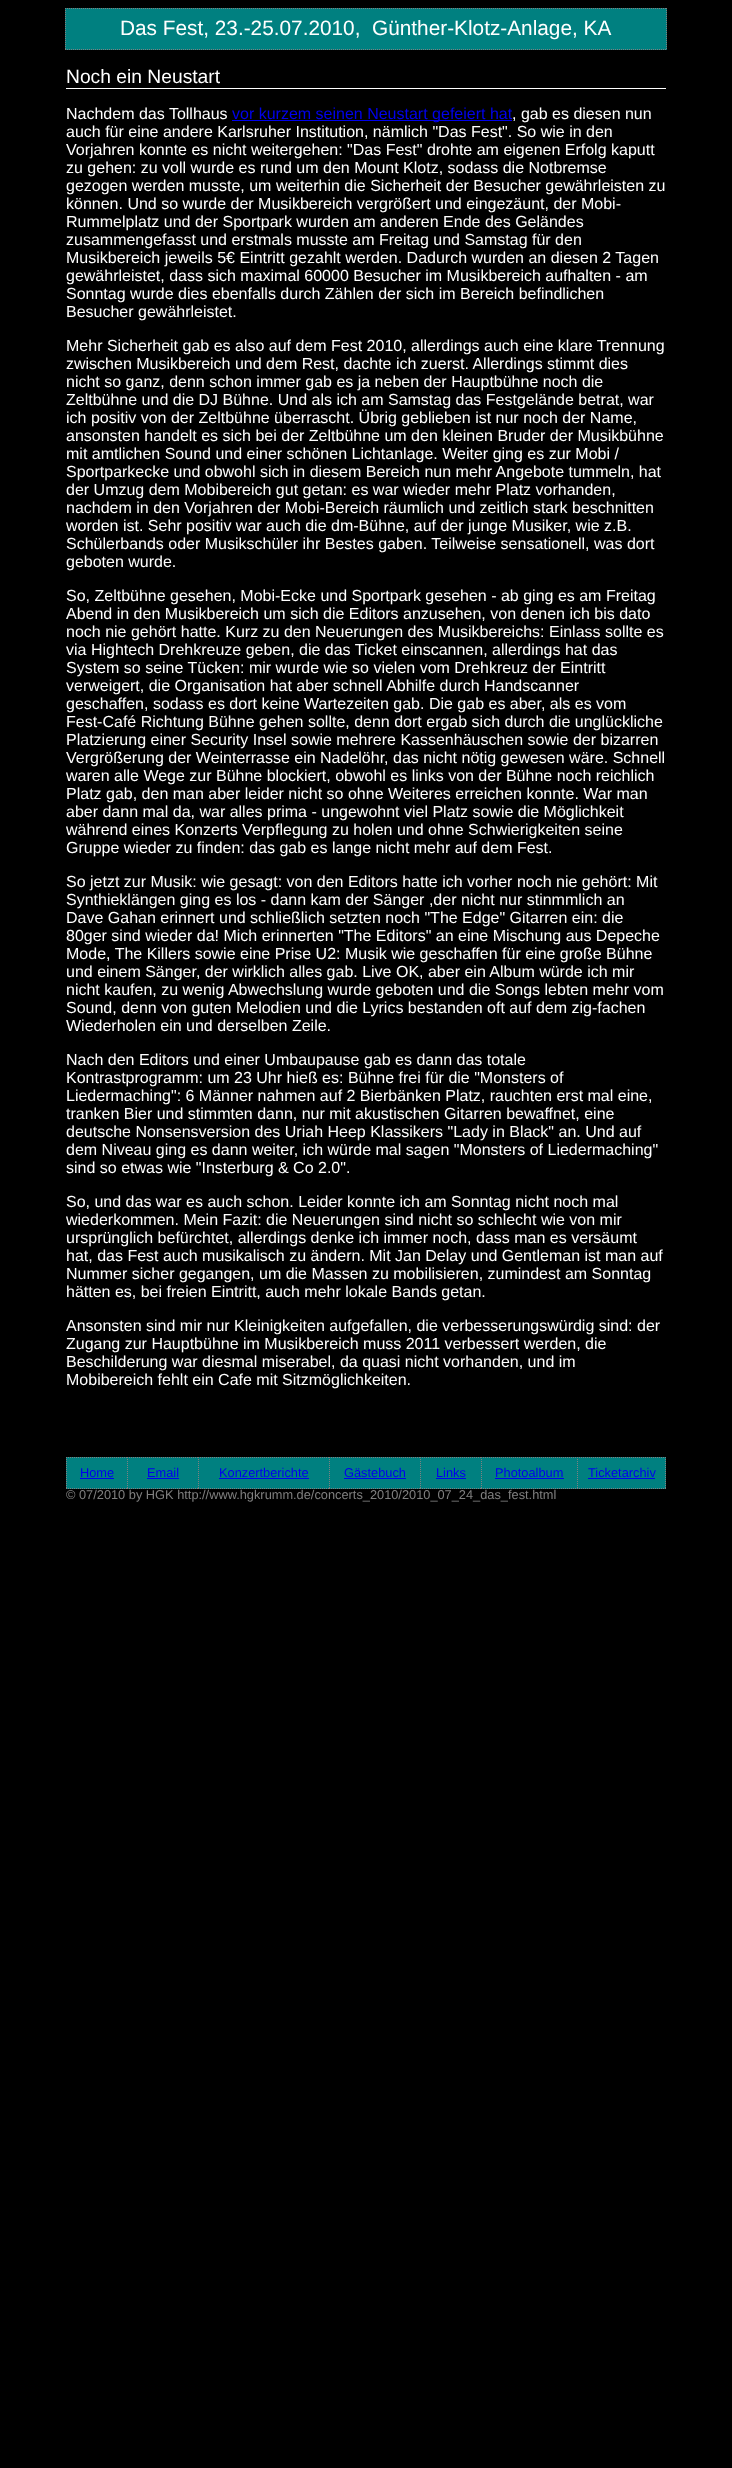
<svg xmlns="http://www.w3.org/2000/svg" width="732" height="2468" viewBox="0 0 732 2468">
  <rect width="100%" height="100%" fill="rgb(0,0,0)"/>
  <rect x="65" y="8" width="602" height="42" fill="rgb(0,128,128)"/>
  <path d="M65 8.5H667" fill="none" stroke="rgb(128,128,128)" stroke-dasharray="1 1"/>
  <path d="M666.5 8V50" fill="none" stroke="rgb(128,128,128)" stroke-dasharray="1 1"/>
  <path d="M65 49.5H667" fill="none" stroke="rgb(128,128,128)" stroke-dasharray="1 1"/>
  <path d="M65.5 8V50" fill="none" stroke="rgb(128,128,128)" stroke-dasharray="1 1"/>
  <text x="120" y="35" font-family="Liberation Sans" font-size="20.8" fill="rgb(255,255,255)" xml:space="preserve">Das Fest, 23.-25.07.2010,  Günther-Klotz-Anlage, KA</text>
  <rect x="66" y="88" width="600" height="1" fill="rgb(255,255,255)"/>
  <text x="66" y="83" font-family="Liberation Sans" font-size="19.25" fill="rgb(255,255,255)">Noch ein Neustart</text>
  <text x="66" y="119" font-family="Liberation Sans" font-size="16" fill="rgb(255,255,255)">Nachdem das Tollhaus</text>
  <rect x="232" y="120" width="280" height="1" fill="rgb(0,0,238)"/>
  <text x="232" y="119" font-family="Liberation Sans" font-size="16" fill="rgb(0,0,238)">vor kurzem seinen Neustart gefeiert hat</text>
  <g font-family="Liberation Sans" font-size="16" fill="rgb(255,255,255)">
    <text x="512" y="119">, gab es diesen nun</text>
    <text>
      <tspan x="66" y="137">auch für eine andere Karlsruher Institution, nämlich "Das Fest". So wie in den</tspan>
      <tspan x="66" y="155">Vorjahren konnte es nicht weitergehen: "Das Fest" drohte am eigenen Erfolg kaputt</tspan>
      <tspan x="66" y="173">zu gehen: zu voll wurde es rund um den Mount Klotz, sodass die Notbremse</tspan>
      <tspan x="66" y="191">gezogen werden musste, um weiterhin die Sicherheit der Besucher gewährleisten zu</tspan>
      <tspan x="66" y="209">können. Und so wurde der Musikbereich vergrößert und eingezäunt, der Mobi-</tspan>
      <tspan x="66" y="227">Rummelplatz und der Sportpark wurden am anderen Ende des Geländes</tspan>
      <tspan x="66" y="245">zusammengefasst und erstmals musste am Freitag und Samstag für den</tspan>
      <tspan x="66" y="263">Musikbereich jeweils 5€ Eintritt gezahlt werden. Dadurch wurden an diesen 2 Tagen</tspan>
      <tspan x="66" y="281">gewährleistet, dass sich maximal 60000 Besucher im Musikbereich aufhalten - am</tspan>
      <tspan x="66" y="299">Sonntag wurde dies ebenfalls durch Zählen der sich im Bereich befindlichen</tspan>
      <tspan x="66" y="317">Besucher gewährleistet.</tspan>
    </text>
    <text>
      <tspan x="66" y="351">Mehr Sicherheit gab es also auf dem Fest 2010, allerdings auch eine klare Trennung</tspan>
      <tspan x="66" y="369">zwischen Musikbereich und dem Rest, dachte ich zuerst. Allerdings stimmt dies</tspan>
      <tspan x="66" y="387">nicht so ganz, denn schon immer gab es ja neben der Hauptbühne noch die</tspan>
      <tspan x="66" y="405">Zeltbühne und die DJ Bühne. Und als ich am Samstag das Festgelände betrat, war</tspan>
      <tspan x="66" y="423">ich positiv von der Zeltbühne überrascht. Übrig geblieben ist nur noch der Name,</tspan>
      <tspan x="66" y="441">ansonsten handelt es sich bei der Zeltbühne um den kleinen Bruder der Musikbühne</tspan>
      <tspan x="66" y="459">mit amtlichen Sound und einer schönen Lichtanlage. Weiter ging es zur Mobi /</tspan>
      <tspan x="66" y="477">Sportparkecke und obwohl sich in diesem Bereich nun mehr Angebote tummeln, hat</tspan>
      <tspan x="66" y="495">der Umzug dem Mobibereich gut getan: es war wieder mehr Platz vorhanden,</tspan>
      <tspan x="66" y="513">nachdem in den Vorjahren der Mobi-Bereich räumlich und zeitlich stark beschnitten</tspan>
      <tspan x="66" y="531">worden ist. Sehr positiv war auch die dm-Bühne, auf der junge Musiker, wie z.B.</tspan>
      <tspan x="66" y="549">Schülerbands oder Musikschüler ihr Bestes gaben. Teilweise sensationell, was dort</tspan>
      <tspan x="66" y="567">geboten wurde.</tspan>
    </text>
    <text>
      <tspan x="66" y="601">So, Zeltbühne gesehen, Mobi-Ecke und Sportpark gesehen - ab ging es am Freitag</tspan>
      <tspan x="66" y="619">Abend in den Musikbereich um sich die Editors anzusehen, von denen ich bis dato</tspan>
      <tspan x="66" y="637">noch nie gehört hatte. Kurz zu den Neuerungen des Musikbereichs: Einlass sollte es</tspan>
      <tspan x="66" y="655">via Hightech Drehkreuze geben, die das Ticket einscannen, allerdings hat das</tspan>
      <tspan x="66" y="673">System so seine Tücken: mir wurde wie so vielen vom Drehkreuz der Eintritt</tspan>
      <tspan x="66" y="691">verweigert, die Organisation hat aber schnell Abhilfe durch Handscanner</tspan>
      <tspan x="66" y="709">geschaffen, sodass es dort keine Wartezeiten gab. Die gab es aber, als es vom</tspan>
      <tspan x="66" y="727">Fest-Café Richtung Bühne gehen sollte, denn dort ergab sich durch die unglückliche</tspan>
      <tspan x="66" y="745">Platzierung einer Security Insel sowie mehrere Kassenhäuschen sowie der bizarren</tspan>
      <tspan x="66" y="763">Vergrößerung der Weinterrasse ein Nadelöhr, das nicht nötig gewesen wäre. Schnell</tspan>
      <tspan x="66" y="781">waren alle Wege zur Bühne blockiert, obwohl es links von der Bühne noch reichlich</tspan>
      <tspan x="66" y="799">Platz gab, den man aber leider nicht so ohne Weiteres erreichen konnte. War man</tspan>
      <tspan x="66" y="817">aber dann mal da, war alles prima - ungewohnt viel Platz sowie die Möglichkeit</tspan>
      <tspan x="66" y="835">während eines Konzerts Verpflegung zu holen und ohne Schwierigkeiten seine</tspan>
      <tspan x="66" y="853">Gruppe wieder zu finden: das gab es lange nicht mehr auf dem Fest.</tspan>
    </text>
    <text>
      <tspan x="66" y="887">So jetzt zur Musik: wie gesagt: von den Editors hatte ich vorher noch nie gehört: Mit</tspan>
      <tspan x="66" y="905">Synthieklängen ging es los - dann kam der Sänger ,der nicht nur stinmmlich an</tspan>
      <tspan x="66" y="923">Dave Gahan erinnert und schließlich setzten noch "The Edge" Gitarren ein: die</tspan>
      <tspan x="66" y="941">80ger sind wieder da! Mich erinnerten "The Editors" an eine Mischung aus Depeche</tspan>
      <tspan x="66" y="959">Mode, The Killers sowie eine Prise U2: Musik wie geschaffen für eine große Bühne</tspan>
      <tspan x="66" y="977">und einem Sänger, der wirklich alles gab. Live OK, aber ein Album würde ich mir</tspan>
      <tspan x="66" y="995">nicht kaufen, zu wenig Abwechslung wurde geboten und die Songs lebten mehr vom</tspan>
      <tspan x="66" y="1013">Sound, denn von guten Melodien und die Lyrics bestanden oft auf dem zig-fachen</tspan>
      <tspan x="66" y="1031">Wiederholen ein und derselben Zeile.</tspan>
    </text>
    <text>
      <tspan x="66" y="1065">Nach den Editors und einer Umbaupause gab es dann das totale</tspan>
      <tspan x="66" y="1083">Kontrastprogramm: um 23 Uhr hieß es: Bühne frei für die "Monsters of</tspan>
      <tspan x="66" y="1101">Liedermaching": 6 Männer nahmen auf 2 Bierbänken Platz, rauchten erst mal eine,</tspan>
      <tspan x="66" y="1119">tranken Bier und stimmten dann, nur mit akustischen Gitarren bewaffnet, eine</tspan>
      <tspan x="66" y="1137">deutsche Nonsensversion des Uriah Heep Klassikers "Lady in Black" an. Und auf</tspan>
      <tspan x="66" y="1155">dem Niveau ging es dann weiter, ich würde mal sagen "Monsters of Liedermaching"</tspan>
      <tspan x="66" y="1173">sind so etwas wie "Insterburg &amp; Co 2.0".</tspan>
    </text>
    <text>
      <tspan x="66" y="1207">So, und das war es auch schon. Leider konnte ich am Sonntag nicht noch mal</tspan>
      <tspan x="66" y="1225">wiederkommen. Mein Fazit: die Neuerungen sind nicht so schlecht wie von mir</tspan>
      <tspan x="66" y="1243">ursprünglich befürchtet, allerdings denke ich immer noch, dass man es versäumt</tspan>
      <tspan x="66" y="1261">hat, das Fest auch musikalisch zu ändern. Mit Jan Delay und Gentleman ist man auf</tspan>
      <tspan x="66" y="1279">Nummer sicher gegangen, um die Massen zu mobilisieren, zumindest am Sonntag</tspan>
      <tspan x="66" y="1297">hätten es, bei freien Eintritt, auch mehr lokale Bands getan.</tspan>
    </text>
    <text>
      <tspan x="66" y="1331">Ansonsten sind mir nur Kleinigkeiten aufgefallen, die verbesserungswürdig sind: der</tspan>
      <tspan x="66" y="1349">Zugang zur Hauptbühne im Musikbereich muss 2011 verbessert werden, die</tspan>
      <tspan x="66" y="1367">Beschilderung war diesmal miserabel, da quasi nicht vorhanden, und im</tspan>
      <tspan x="66" y="1385">Mobibereich fehlt ein Cafe mit Sitzmöglichkeiten.</tspan>
    </text>
  </g>
  <rect x="66" y="1457" width="511" height="32" fill="rgb(0,128,128)"/>
  <path d="M66 1457.5H128M66 1488.5H128M66.5 1457V1489" fill="none" stroke="rgb(128,128,128)" stroke-dasharray="1 1"/>
  <text x="80" y="1477" font-family="Liberation Sans" font-size="12.8" fill="rgb(0,0,238)">Home</text>
  <rect x="80" y="1478" width="34" height="1" fill="rgb(0,0,238)"/>
  <path d="M127 1457.5H199" fill="none" stroke="rgb(128,128,128)" stroke-dasharray="1 1"/>
  <path d="M127 1488.5H199" fill="none" stroke="rgb(128,128,128)" stroke-dasharray="1 1"/>
  <path d="M127.5 1457V1489" fill="none" stroke="rgb(128,128,128)" stroke-dasharray="1 1"/>
  <text x="147" y="1477" font-family="Liberation Sans" font-size="12.8" fill="rgb(0,0,238)">Email</text>
  <rect x="147" y="1478" width="32" height="1" fill="rgb(0,0,238)"/>
  <path d="M198 1457.5H330" fill="none" stroke="rgb(128,128,128)" stroke-dasharray="1 1"/>
  <path d="M198 1488.5H330" fill="none" stroke="rgb(128,128,128)" stroke-dasharray="1 1"/>
  <path d="M198.5 1457V1489" fill="none" stroke="rgb(128,128,128)" stroke-dasharray="1 1"/>
  <text x="219" y="1477" font-family="Liberation Sans" font-size="12.8" fill="rgb(0,0,238)">Konzertberichte</text>
  <rect x="219" y="1478" width="90" height="1" fill="rgb(0,0,238)"/>
  <path d="M329 1457.5H421" fill="none" stroke="rgb(128,128,128)" stroke-dasharray="1 1"/>
  <path d="M329 1488.5H421" fill="none" stroke="rgb(128,128,128)" stroke-dasharray="1 1"/>
  <path d="M329.5 1457V1489" fill="none" stroke="rgb(128,128,128)" stroke-dasharray="1 1"/>
  <text x="344" y="1477" font-family="Liberation Sans" font-size="12.8" fill="rgb(0,0,238)">Gästebuch</text>
  <rect x="344" y="1478" width="62" height="1" fill="rgb(0,0,238)"/>
  <path d="M420 1457.5H482M420 1488.5H482M420.5 1457V1489" fill="none" stroke="rgb(128,128,128)" stroke-dasharray="1 1"/>
  <text x="436" y="1477" font-family="Liberation Sans" font-size="12.8" fill="rgb(0,0,238)">Links</text>
  <rect x="436" y="1478" width="30" height="1" fill="rgb(0,0,238)"/>
  <path d="M481 1457.5H578" fill="none" stroke="rgb(128,128,128)" stroke-dasharray="1 1"/>
  <path d="M481 1488.5H578" fill="none" stroke="rgb(128,128,128)" stroke-dasharray="1 1"/>
  <path d="M481.5 1457V1489" fill="none" stroke="rgb(128,128,128)" stroke-dasharray="1 1"/>
  <text x="495" y="1477" font-family="Liberation Sans" font-size="12.8" fill="rgb(0,0,238)">Photoalbum</text>
  <rect x="495" y="1478" width="69" height="1" fill="rgb(0,0,238)"/>
  <rect x="577" y="1457" width="89" height="32" fill="rgb(0,128,128)"/>
  <path d="M577 1457.5H666" fill="none" stroke="rgb(128,128,128)" stroke-dasharray="1 1"/>
  <path d="M665.5 1457V1489" fill="none" stroke="rgb(128,128,128)" stroke-dasharray="1 1"/>
  <path d="M577 1488.5H666" fill="none" stroke="rgb(128,128,128)" stroke-dasharray="1 1"/>
  <path d="M577.5 1457V1489" fill="none" stroke="rgb(128,128,128)" stroke-dasharray="1 1"/>
  <text x="588" y="1477" font-family="Liberation Sans" font-size="12.8" fill="rgb(0,0,238)">Ticketarchiv</text>
  <rect x="588" y="1478" width="67" height="1" fill="rgb(0,0,238)"/>
  <text x="66" y="1499" font-family="Liberation Sans" font-size="12.8" fill="rgb(128,128,128)">© 07/2010 by HGK http://www.hgkrumm.de/concerts_2010/2010_07_24_das_fest.html</text>
</svg>
